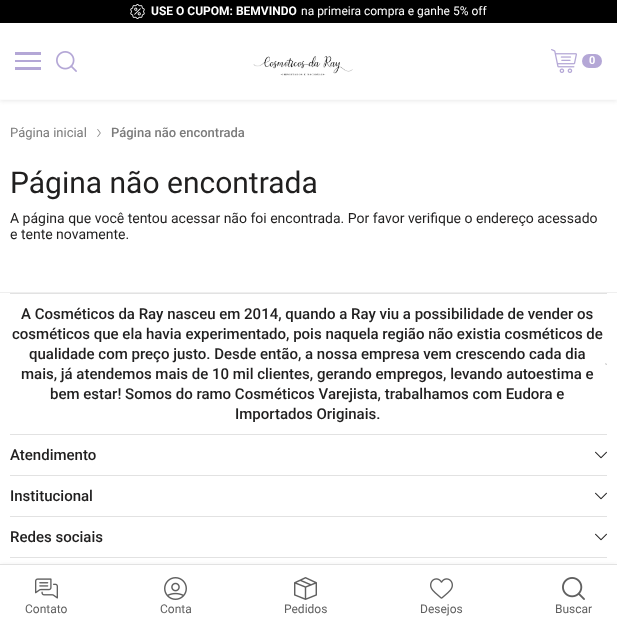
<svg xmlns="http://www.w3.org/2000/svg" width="617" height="634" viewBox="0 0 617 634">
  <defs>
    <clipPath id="clip1"><path d="M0 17H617V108H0ZM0 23H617V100H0Z" clip-rule="evenodd"/></clipPath>
  </defs>
  <rect width="100%" height="100%" fill="rgb(255,255,255)"/>
  <rect x="0" y="0" width="617" height="23" fill="rgb(0,0,0)"/>
  <image x="130" y="4" width="15" height="15" href="pic1.png"/>
  <text x="151" y="15" font-family="Roboto" font-size="12" font-weight="bold" fill="rgb(255,255,255)">USE O CUPOM: BEMVINDO</text>
  <text x="301" y="15" font-family="Roboto" font-size="12" fill="rgb(255,255,255)">na primeira compra e ganhe 5% off</text>
  <g clip-path="url(#clip1)">
    <rect x="0" y="24" width="617" height="77" fill="rgba(82,82,82,0.13)" filter="blur(2px)"/>
  </g>
  <rect x="0" y="99" width="617" height="1" fill="rgb(252,252,252)"/>
  <rect x="15" y="67" width="26" height="3" fill="rgb(180,167,214)"/>
  <rect x="15" y="60" width="26" height="2" fill="rgb(180,167,214)"/>
  <rect x="15" y="52" width="26" height="3" fill="rgb(180,167,214)"/>
  <image x="56" y="51" width="21" height="21" href="pic2.png"/>
  <image x="253" y="56" width="100" height="20" href="pic3.png"/>
  <image x="551" y="49" width="26" height="24" href="pic4.png"/>
  <rect x="582" y="54" width="20" height="14" rx="7" fill="rgb(180,167,214)"/>
  <text x="589" y="64" font-family="Roboto" font-size="11" font-weight="bold" fill="rgb(255,255,255)">0</text>
  <text x="10" y="137" font-family="Roboto" font-size="13" fill="rgb(123,123,123)">Página inicial</text>
  <image x="97" y="129" width="4" height="8" href="pic5.png"/>
  <text x="111" y="137" font-family="Roboto" font-size="13" font-weight="500" fill="rgb(123,123,123)">Página não encontrada</text>
  <text x="10" y="193" font-family="Roboto" font-size="30" fill="rgb(32,31,31)">Página não encontrada</text>
  <g font-family="Roboto" font-size="14" fill="rgb(32,31,31)">
    <text>
      <tspan x="10" y="223">A página que você tentou acessar não foi encontrada. Por favor verifique o endereço acessado</tspan>
      <tspan x="10" y="239">e tente novamente.</tspan>
    </text>
  </g>
  <rect x="0" y="292" width="617" height="1" fill="rgb(239,239,239)"/>
  <rect x="10" y="293" width="597" height="1" fill="rgb(226,226,226)"/>
  <g font-family="Roboto" font-size="15" font-weight="500" fill="rgb(32,31,31)">
    <text x="21" y="319">A Cosméticos da Ray nasceu em 2014, quando a Ray viu a possibilidade de vender os</text>
    <text x="12" y="339">cosméticos que ela havia experimentado, pois naquela região não existia cosméticos de</text>
    <text x="29" y="359">qualidade com preço justo. Desde então, a nossa empresa vem crescendo cada dia</text>
    <text x="21" y="379">mais, já atendemos mais de 10 mil clientes, gerando empregos, levando autoestima e</text>
    <text x="50" y="399">bem estar! Somos do ramo Cosméticos Varejista, trabalhamos com Eudora e</text>
    <text x="235" y="419">Importados Originais.</text>
  </g>
  <image x="605" y="363" width="2" height="2" href="pic6.png"/>
  <rect x="10" y="434" width="597" height="1" fill="rgb(226,226,226)"/>
  <text x="10" y="460" font-family="Roboto" font-size="15" font-weight="500" fill="rgb(32,31,31)">Atendimento</text>
  <image x="595" y="451" width="12" height="8" href="pic7.png"/>
  <rect x="10" y="475" width="597" height="1" fill="rgb(226,226,226)"/>
  <text x="10" y="501" font-family="Roboto" font-size="15" font-weight="500" fill="rgb(32,31,31)">Institucional</text>
  <image x="595" y="492" width="12" height="8" href="pic7.png"/>
  <rect x="10" y="516" width="597" height="1" fill="rgb(226,226,226)"/>
  <text x="10" y="542" font-family="Roboto" font-size="15" font-weight="500" fill="rgb(32,31,31)">Redes sociais</text>
  <image x="595" y="533" width="12" height="8" href="pic7.png"/>
  <rect x="10" y="557" width="597" height="1" fill="rgb(226,226,226)"/>
  <rect x="0" y="564" width="617" height="70" fill="rgba(82,82,82,0.08)" filter="blur(2px)"/>
  <rect x="0" y="565" width="617" height="69" fill="rgb(255,255,255)"/>
  <rect x="0" y="564" width="617" height="1" fill="rgb(226,226,226)"/>
  <image x="35" y="578" width="23" height="21" href="pic8.png"/>
  <text x="25" y="613" font-family="Roboto" font-size="12" fill="rgb(96,96,96)">Contato</text>
  <image x="164" y="577" width="23" height="23" href="pic9.png"/>
  <text x="160" y="613" font-family="Roboto" font-size="12" fill="rgb(96,96,96)">Conta</text>
  <image x="294" y="577" width="23" height="23" href="pic10.png"/>
  <text x="284" y="613" font-family="Roboto" font-size="12" fill="rgb(96,96,96)">Pedidos</text>
  <image x="430" y="578" width="23" height="21" href="pic11.png"/>
  <text x="420" y="613" font-family="Roboto" font-size="12" fill="rgb(96,96,96)">Desejos</text>
  <image x="562" y="577" width="23" height="23" href="pic12.png"/>
  <text x="555" y="613" font-family="Roboto" font-size="12" fill="rgb(96,96,96)">Buscar</text>
</svg>
